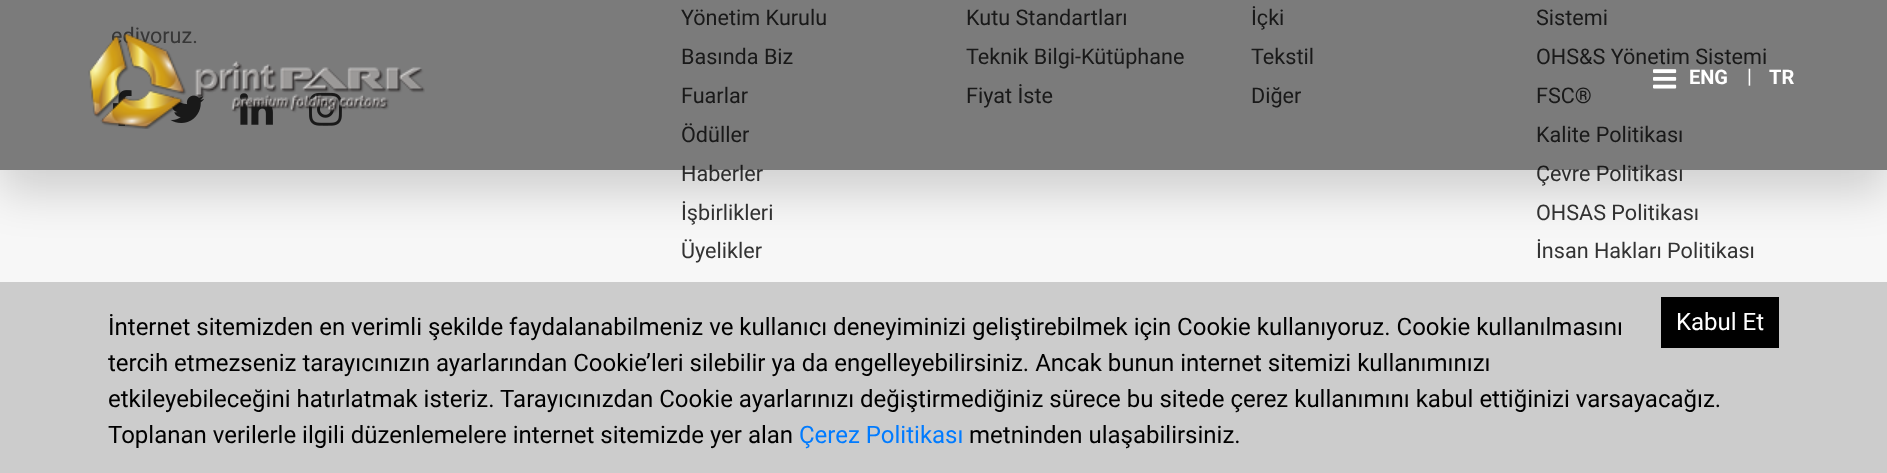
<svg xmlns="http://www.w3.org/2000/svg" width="1887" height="473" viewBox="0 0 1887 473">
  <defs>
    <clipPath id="clip1"><path d="M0 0H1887V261H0ZM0 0H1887V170H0Z" clip-rule="evenodd"/></clipPath>
  </defs>
  <rect width="100%" height="100%" fill="rgb(247,247,247)"/>
  <text x="111" y="43" font-family="Roboto" font-size="21.6" fill="rgb(110,110,110)">ediyoruz.</text>
  <image x="113" y="90" width="19" height="36" href="pic1.png"/>
  <image x="170" y="95" width="34" height="28" href="pic2.png"/>
  <image x="240" y="93" width="33" height="32" href="pic3.png"/>
  <image x="309" y="92" width="33" height="34" href="pic4.png"/>
  <g font-family="Roboto" font-size="21.6" fill="rgb(51,51,51)">
    <text>
      <tspan x="681" y="25">Yönetim Kurulu</tspan>
      <tspan x="681" y="64">Basında Biz</tspan>
      <tspan x="681" y="103">Fuarlar</tspan>
      <tspan x="681" y="142">Ödüller</tspan>
      <tspan x="681" y="181">Haberler</tspan>
      <tspan x="681" y="220">İşbirlikleri</tspan>
      <tspan x="681" y="258">Üyelikler</tspan>
    </text>
    <text>
      <tspan x="966" y="25">Kutu Standartları</tspan>
      <tspan x="966" y="64">Teknik Bilgi-Kütüphane</tspan>
      <tspan x="966" y="103">Fiyat İste</tspan>
    </text>
    <text>
      <tspan x="1251" y="25">İçki</tspan>
      <tspan x="1251" y="64">Tekstil</tspan>
      <tspan x="1251" y="103">Diğer</tspan>
    </text>
    <text>
      <tspan x="1536" y="25">Sistemi</tspan>
      <tspan x="1536" y="64">OHS&amp;S Yönetim Sistemi</tspan>
      <tspan x="1536" y="103">FSC®</tspan>
      <tspan x="1536" y="142">Kalite Politikası</tspan>
      <tspan x="1536" y="181">Çevre Politikası</tspan>
      <tspan x="1536" y="220">OHSAS Politikası</tspan>
      <tspan x="1536" y="258">İnsan Hakları Politikası</tspan>
    </text>
  </g>
  <g clip-path="url(#clip1)">
    <rect x="0" y="23" width="1887" height="169" fill="rgba(0,0,0,0.16)" filter="blur(22.5px)"/>
  </g>
  <rect x="0" y="0" width="1887" height="170" fill="rgba(0,0,0,0.5)"/>
  <image x="88" y="33" width="337" height="96" href="pic5.png"/>
  <image x="1653" y="69" width="24" height="20" href="pic6.png"/>
  <text x="1689" y="84" font-family="Roboto" font-size="20" font-weight="bold" fill="rgb(255,255,255)">ENG</text>
  <text x="1747" y="83" font-family="Roboto" font-size="20" fill="rgb(255,255,255)">|</text>
  <text x="1769" y="84" font-family="Roboto" font-size="20" font-weight="bold" fill="rgb(255,255,255)">TR</text>
  <rect x="0" y="282" width="1887" height="191" fill="rgb(204,204,204)"/>
  <g font-family="Roboto" font-size="24" fill="rgb(0,0,0)">
    <text>
      <tspan x="108" y="335">İnternet sitemizden en verimli şekilde faydalanabilmeniz ve kullanıcı deneyiminizi geliştirebilmek için Cookie kullanıyoruz. Cookie kullanılmasını</tspan>
      <tspan x="108" y="371">tercih etmezseniz tarayıcınızın ayarlarından Cookie’leri silebilir ya da engelleyebilirsiniz. Ancak bunun internet sitemizi kullanımınızı</tspan>
      <tspan x="108" y="407">etkileyebileceğini hatırlatmak isteriz. Tarayıcınızdan Cookie ayarlarınızı değiştirmediğiniz sürece bu sitede çerez kullanımını kabul ettiğinizi varsayacağız.</tspan>
      <tspan x="108" y="443">Toplanan verilerle ilgili düzenlemelere internet sitemizde yer alan</tspan>
    </text>
  </g>
  <text x="799" y="443" font-family="Roboto" font-size="24" fill="rgb(0,123,255)">Çerez Politikası</text>
  <text x="969" y="443" font-family="Roboto" font-size="24" fill="rgb(0,0,0)">metninden ulaşabilirsiniz.</text>
  <rect x="1661" y="297" width="118" height="51" fill="rgb(0,0,0)"/>
  <text x="1676" y="330" font-family="Roboto" font-size="24" fill="rgb(255,255,255)">Kabul Et</text>
</svg>
